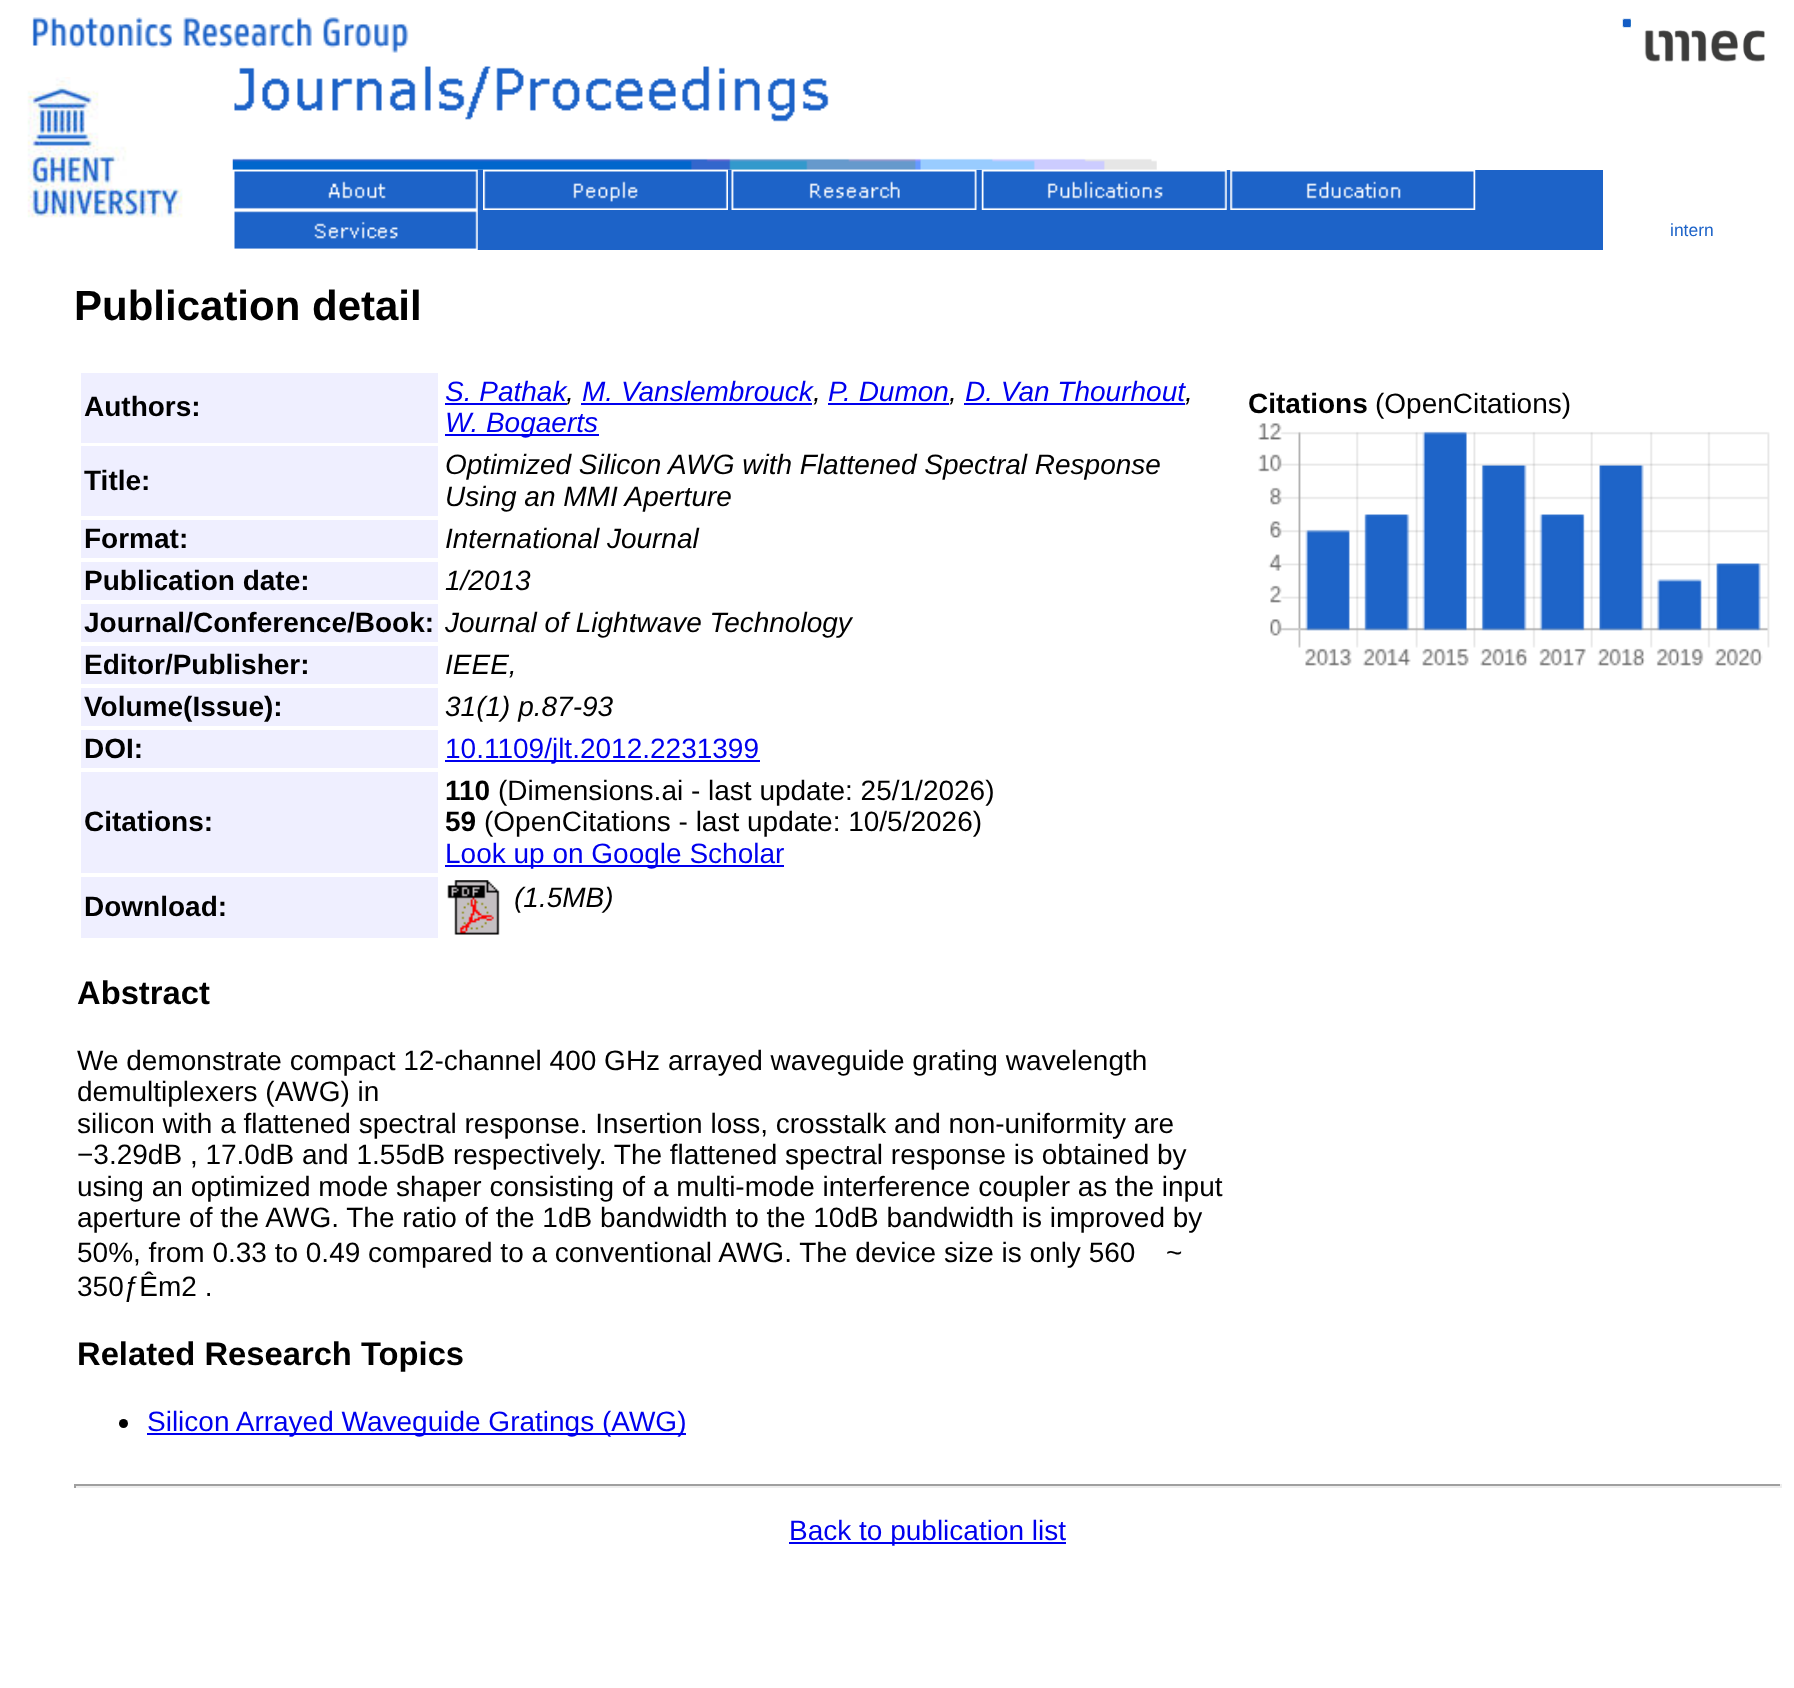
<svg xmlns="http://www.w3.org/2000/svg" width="1794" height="1688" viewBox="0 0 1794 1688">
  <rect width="100%" height="100%" fill="rgb(255,255,255)"/>
  <image x="32" y="17" width="377" height="36" href="pic1.png"/>
  <image x="27" y="77" width="156" height="141" href="pic2.png"/>
  <image x="232" y="66" width="925" height="104" href="pic3.png"/>
  <rect x="477" y="170" width="1126" height="80" fill="rgb(29,99,200)"/>
  <image x="233" y="169" width="245" height="41" href="pic4.png"/>
  <image x="483" y="169" width="245" height="41" href="pic5.png"/>
  <image x="731" y="169" width="246" height="41" href="pic6.png"/>
  <image x="981" y="169" width="246" height="41" href="pic7.png"/>
  <image x="1230" y="170" width="246" height="40" href="pic8.png"/>
  <image x="233" y="210" width="245" height="40" href="pic9.png"/>
  <image x="1622" y="18" width="143" height="44" href="pic10.png"/>
  <text x="1670" y="236" font-family="Liberation Sans" font-size="17.5" fill="rgb(29,99,200)">intern</text>
  <text x="74" y="320" font-family="Liberation Sans" font-size="42" font-weight="bold" fill="rgb(0,0,0)">Publication detail</text>
  <rect x="81" y="373" width="357" height="70" fill="rgb(239,239,255)"/>
  <text x="84" y="416" font-family="Liberation Sans" font-size="28" font-weight="bold" fill="rgb(0,0,0)">Authors:</text>
  <text x="445" y="401" font-family="Liberation Sans" font-size="28" font-style="italic" fill="rgb(0,0,238)">S. Pathak</text>
  <rect x="445" y="403" width="122" height="2" fill="rgb(0,0,238)"/>
  <text x="566" y="401" font-family="Liberation Sans" font-size="28" font-style="italic" fill="rgb(0,0,0)">,</text>
  <text x="582" y="401" font-family="Liberation Sans" font-size="28" font-style="italic" fill="rgb(0,0,238)">M. Vanslembrouck</text>
  <text x="813" y="401" font-family="Liberation Sans" font-size="28" font-style="italic" fill="rgb(0,0,0)">,</text>
  <rect x="581" y="403" width="231" height="2" fill="rgb(0,0,238)"/>
  <text x="828" y="401" font-family="Liberation Sans" font-size="28" font-style="italic" fill="rgb(0,0,238)">P. Dumon</text>
  <text x="949" y="401" font-family="Liberation Sans" font-size="28" font-style="italic" fill="rgb(0,0,0)">,</text>
  <rect x="828" y="403" width="121" height="2" fill="rgb(0,0,238)"/>
  <text x="965" y="401" font-family="Liberation Sans" font-size="28" font-style="italic" fill="rgb(0,0,238)">D. Van Thourhout</text>
  <text x="1185" y="401" font-family="Liberation Sans" font-size="28" font-style="italic" fill="rgb(0,0,0)">,</text>
  <rect x="964" y="403" width="221" height="2" fill="rgb(0,0,238)"/>
  <rect x="445" y="434" width="154" height="2" fill="rgb(0,0,238)"/>
  <text x="445" y="432" font-family="Liberation Sans" font-size="28" font-style="italic" fill="rgb(0,0,238)">W. Bogaerts</text>
  <rect x="81" y="446" width="357" height="70" fill="rgb(239,239,255)"/>
  <text x="84" y="490" font-family="Liberation Sans" font-size="28" font-weight="bold" fill="rgb(0,0,0)">Title:</text>
  <g font-family="Liberation Sans" font-size="28" font-style="italic" fill="rgb(0,0,0)">
    <text>
      <tspan x="445" y="474">Optimized Silicon AWG with Flattened Spectral Response</tspan>
      <tspan x="445" y="506">Using an MMI Aperture</tspan>
    </text>
  </g>
  <rect x="81" y="520" width="357" height="38" fill="rgb(239,239,255)"/>
  <text x="84" y="548" font-family="Liberation Sans" font-size="28" font-weight="bold" fill="rgb(0,0,0)">Format:</text>
  <text x="445" y="548" font-family="Liberation Sans" font-size="28" font-style="italic" fill="rgb(0,0,0)">International Journal</text>
  <rect x="81" y="562" width="357" height="38" fill="rgb(239,239,255)"/>
  <text x="84" y="590" font-family="Liberation Sans" font-size="28" font-weight="bold" fill="rgb(0,0,0)">Publication date:</text>
  <text x="445" y="590" font-family="Liberation Sans" font-size="28" font-style="italic" fill="rgb(0,0,0)">1/2013</text>
  <rect x="81" y="604" width="357" height="38" fill="rgb(239,239,255)"/>
  <text x="84" y="632" font-family="Liberation Sans" font-size="28" font-weight="bold" fill="rgb(0,0,0)">Journal/Conference/Book:</text>
  <text x="445" y="632" font-family="Liberation Sans" font-size="28" font-style="italic" fill="rgb(0,0,0)">Journal of Lightwave Technology</text>
  <rect x="81" y="646" width="357" height="38" fill="rgb(239,239,255)"/>
  <text x="84" y="674" font-family="Liberation Sans" font-size="28" font-weight="bold" fill="rgb(0,0,0)">Editor/Publisher:</text>
  <text x="445" y="674" font-family="Liberation Sans" font-size="28" font-style="italic" fill="rgb(0,0,0)">IEEE,</text>
  <rect x="81" y="688" width="357" height="38" fill="rgb(239,239,255)"/>
  <text x="84" y="716" font-family="Liberation Sans" font-size="28" font-weight="bold" fill="rgb(0,0,0)">Volume(Issue):</text>
  <text x="445" y="716" font-family="Liberation Sans" font-size="28" font-style="italic" fill="rgb(0,0,0)">31(1) p.87-93</text>
  <rect x="81" y="730" width="357" height="38" fill="rgb(239,239,255)"/>
  <text x="84" y="758" font-family="Liberation Sans" font-size="28" font-weight="bold" fill="rgb(0,0,0)">DOI:</text>
  <rect x="445" y="760" width="315" height="2" fill="rgb(0,0,238)"/>
  <text x="445" y="758" font-family="Liberation Sans" font-size="28" fill="rgb(0,0,238)">10.1109/jlt.2012.2231399</text>
  <rect x="81" y="772" width="357" height="101" fill="rgb(239,239,255)"/>
  <g font-family="Liberation Sans" font-size="28" font-weight="bold" fill="rgb(0,0,0)">
    <text x="84" y="831">Citations:</text>
    <text x="445" y="800">110</text>
  </g>
  <text x="498" y="800" font-family="Liberation Sans" font-size="28" fill="rgb(0,0,0)">(Dimensions.ai - last update: 25/1/2026)</text>
  <text x="445" y="831" font-family="Liberation Sans" font-size="28" font-weight="bold" fill="rgb(0,0,0)">59</text>
  <text x="484" y="831" font-family="Liberation Sans" font-size="28" fill="rgb(0,0,0)">(OpenCitations - last update: 10/5/2026)</text>
  <rect x="445" y="865" width="339" height="2" fill="rgb(0,0,238)"/>
  <text x="445" y="863" font-family="Liberation Sans" font-size="28" fill="rgb(0,0,238)">Look up on Google Scholar</text>
  <rect x="81" y="877" width="357" height="61" fill="rgb(239,239,255)"/>
  <text x="84" y="916" font-family="Liberation Sans" font-size="28" font-weight="bold" fill="rgb(0,0,0)">Download:</text>
  <image x="447" y="880" width="53" height="55" href="pic11.png"/>
  <text x="514" y="907" font-family="Liberation Sans" font-size="28" font-style="italic" fill="rgb(0,0,0)">(1.5MB)</text>
  <text x="77" y="1004" font-family="Liberation Sans" font-size="32.75" font-weight="bold" fill="rgb(0,0,0)">Abstract</text>
  <g font-family="Liberation Sans" font-size="28" fill="rgb(0,0,0)">
    <text>
      <tspan x="77" y="1070">We demonstrate compact 12-channel 400 GHz arrayed waveguide grating wavelength</tspan>
      <tspan x="77" y="1101">demultiplexers (AWG) in</tspan>
      <tspan x="77" y="1133">silicon with a flattened spectral response. Insertion loss, crosstalk and non-uniformity are</tspan>
      <tspan x="77" y="1164">−3.29dB , 17.0dB and 1.55dB respectively. The flattened spectral response is obtained by</tspan>
      <tspan x="77" y="1196">using an optimized mode shaper consisting of a multi-mode interference coupler as the input</tspan>
      <tspan x="77" y="1227">aperture of the AWG. The ratio of the 1dB bandwidth to the 10dB bandwidth is improved by</tspan>
      <tspan x="77" y="1262">50%, from 0.33 to 0.49 compared to a conventional AWG. The device size is only 560</tspan>
    </text>
    <text x="1166" y="1262">~</text>
    <text x="77" y="1296">350ƒÊm2 .</text>
  </g>
  <text x="77" y="1365" font-family="Liberation Sans" font-size="32.75" font-weight="bold" fill="rgb(0,0,0)">Related Research Topics</text>
  <circle cx="123.5" cy="1423.5" r="4.5" fill="rgb(0,0,0)"/>
  <rect x="147" y="1433" width="539" height="2" fill="rgb(0,0,238)"/>
  <text x="147" y="1431" font-family="Liberation Sans" font-size="28" fill="rgb(0,0,238)">Silicon Arrayed Waveguide Gratings (AWG)</text>
  <text x="1248" y="413" font-family="Liberation Sans" font-size="28" font-weight="bold" fill="rgb(0,0,0)">Citations</text>
  <text x="1375" y="413" font-family="Liberation Sans" font-size="28" fill="rgb(0,0,0)">(OpenCitations)</text>
  <image x="1258" y="423" width="512" height="243" href="pic12.png"/>
  <rect x="74" y="1484" width="1708" height="2" fill="rgb(159,159,159)"/>
  <rect x="1780" y="1484" width="2" height="4" fill="rgb(238,238,238)"/>
  <rect x="74" y="1486" width="1708" height="2" fill="rgb(238,238,238)"/>
  <rect x="74" y="1484" width="2" height="4" fill="rgb(159,159,159)"/>
  <rect x="789" y="1542" width="277" height="2" fill="rgb(0,0,238)"/>
  <text x="789" y="1540" font-family="Liberation Sans" font-size="28" fill="rgb(0,0,238)">Back to publication list</text>
</svg>
